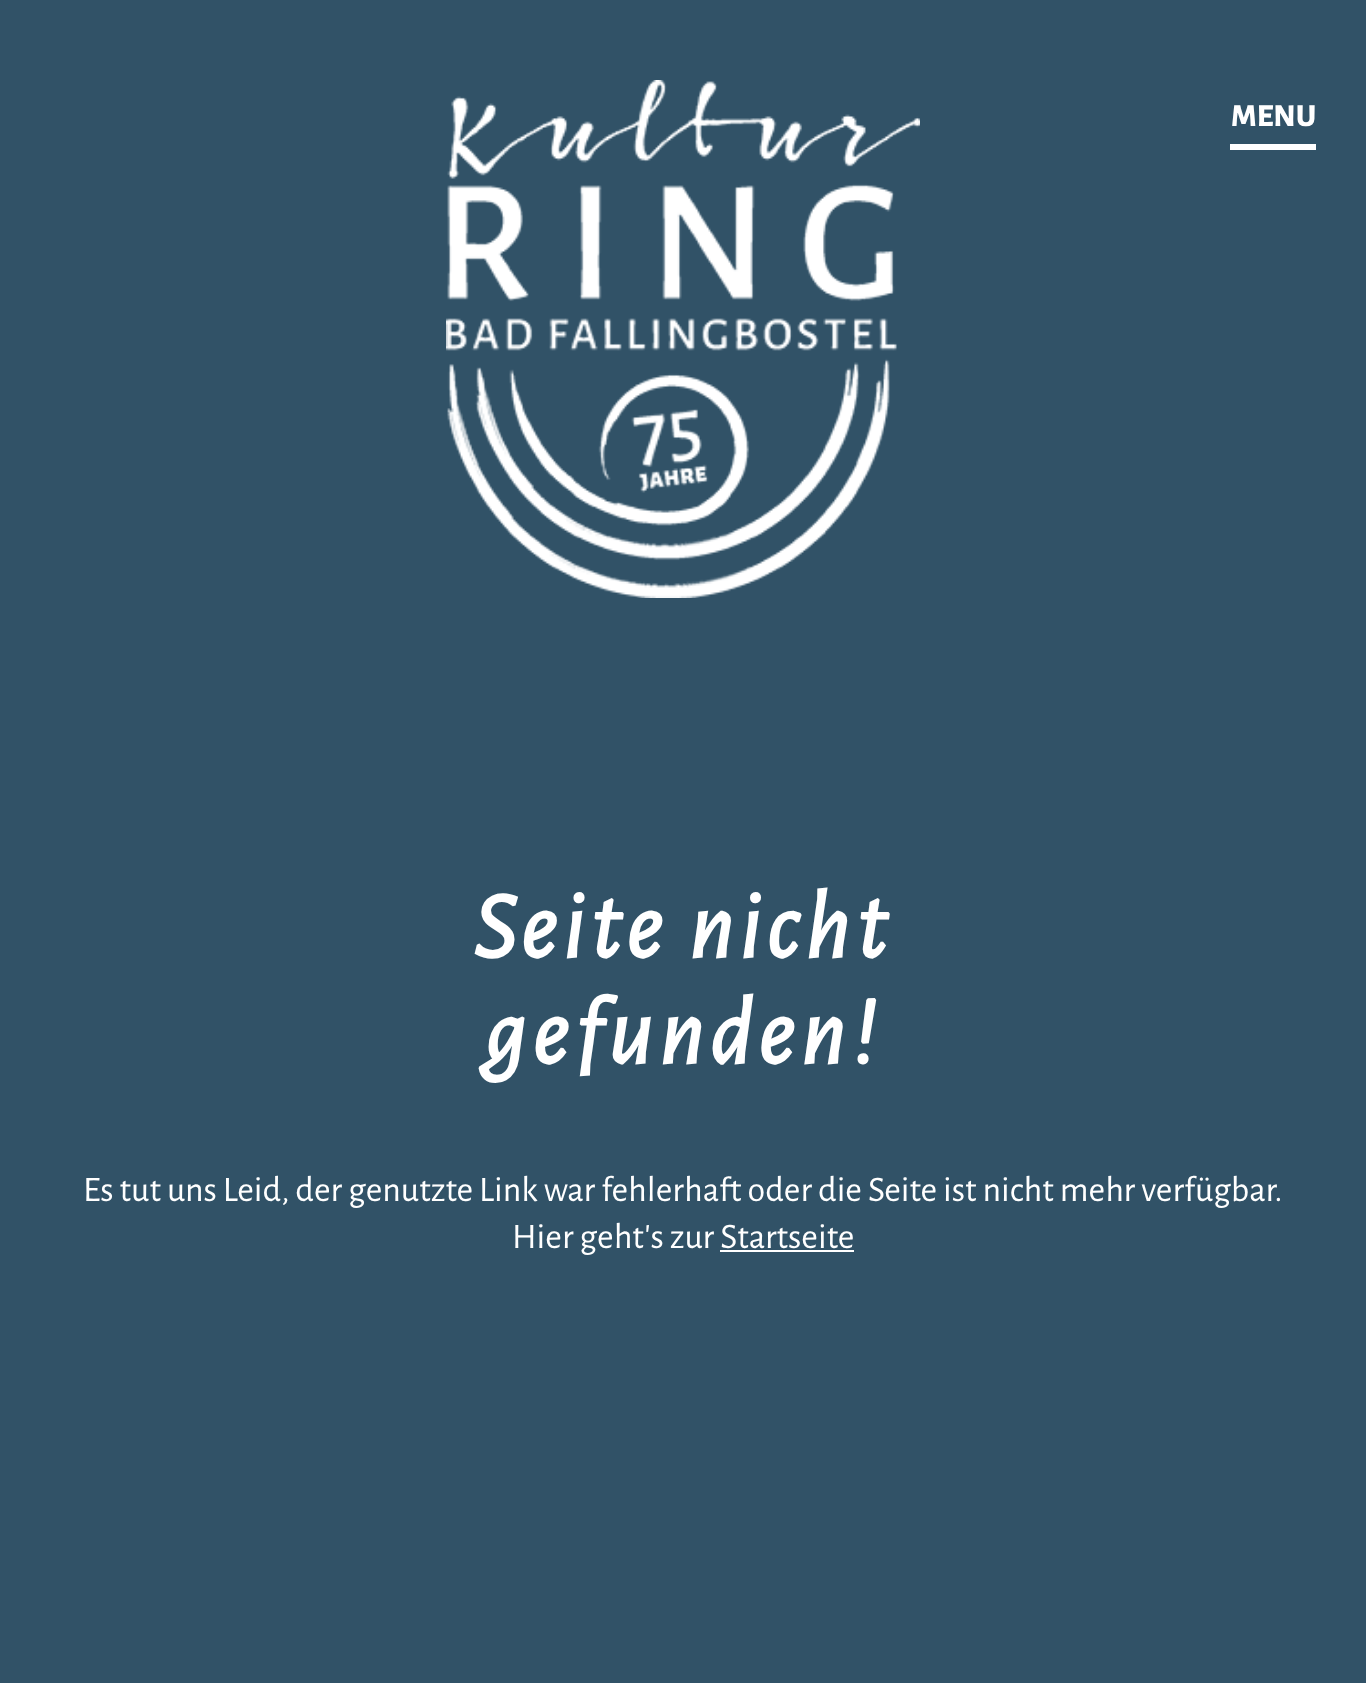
<svg xmlns="http://www.w3.org/2000/svg" width="1366" height="1683" viewBox="0 0 1366 1683">
  <rect width="100%" height="100%" fill="rgb(49,82,103)"/>
  <image x="446" y="80" width="474" height="518" href="pic1.png"/>
  <rect x="1230" y="144" width="86" height="6" fill="rgb(255,255,255)"/>
  <text x="1231" y="126" font-family="Alegreya Sans" font-size="32" font-weight="800" fill="rgb(255,255,255)">MENU</text>
  <g font-family="Alegreya Sans" font-size="96" font-weight="bold" font-style="italic" letter-spacing="6" fill="rgb(255,255,255)">
    <text x="473" y="958">Seite nicht</text>
    <text x="484" y="1064">gefunden!</text>
  </g>
  <g font-family="Alegreya Sans" font-size="36" fill="rgb(255,255,255)">
    <text x="83" y="1201">Es tut uns Leid, der genutzte Link war fehlerhaft oder die Seite ist nicht mehr verfügbar.</text>
    <text x="512" y="1248">Hier geht's zur Startseite</text>
  </g>
  <rect x="720" y="1250" width="134" height="2" fill="rgb(255,255,255)"/>
</svg>
